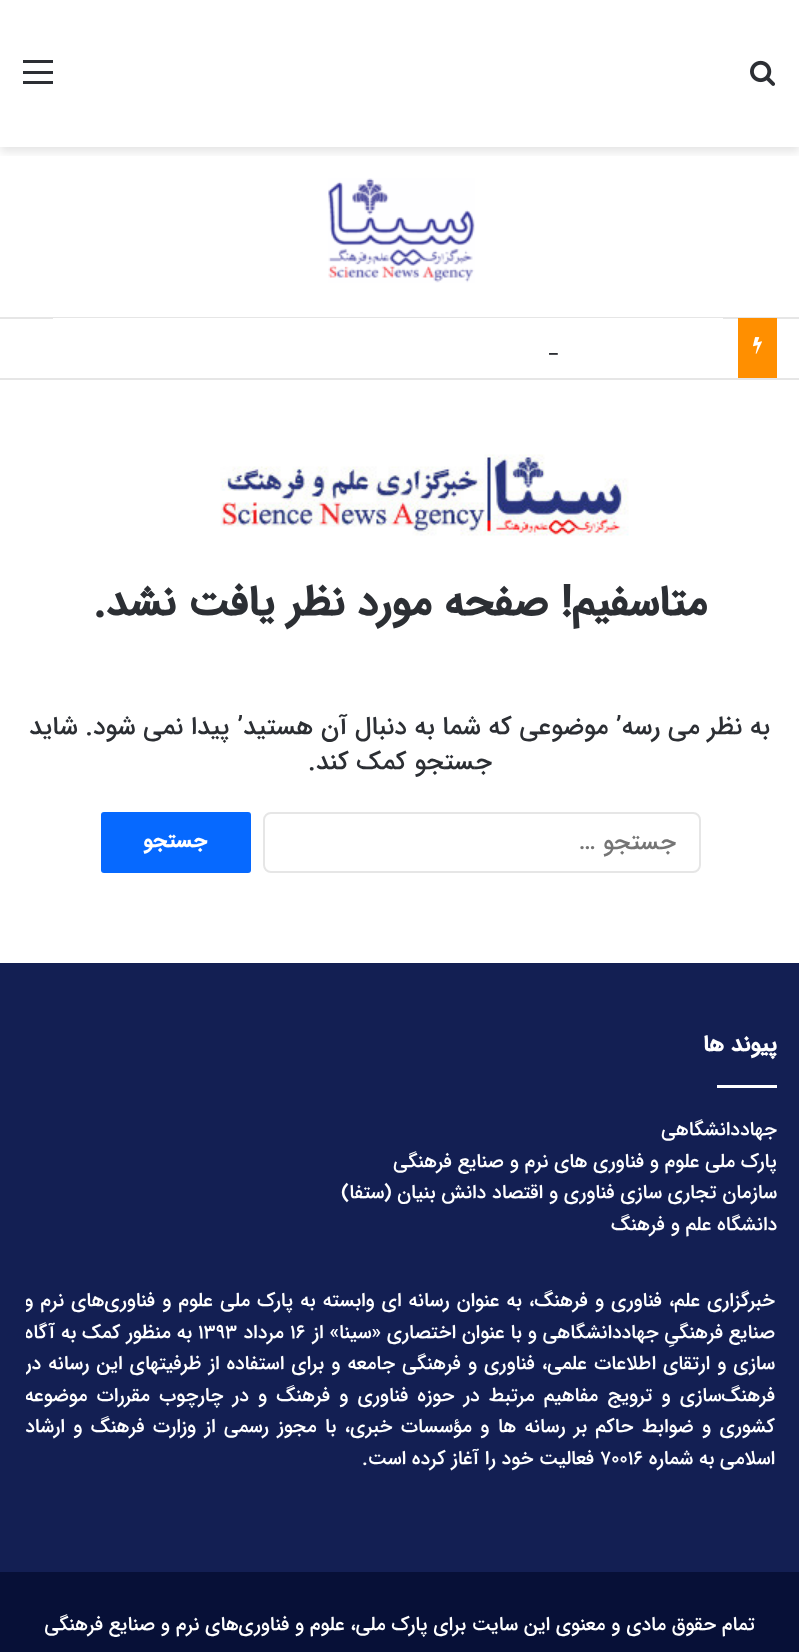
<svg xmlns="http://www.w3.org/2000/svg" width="799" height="1652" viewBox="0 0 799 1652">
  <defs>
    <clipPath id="clip1"><rect x="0" y="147" width="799" height="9"/></clipPath>
    <clipPath id="clip2"><rect x="26" y="1286" width="750" height="189"/></clipPath>
  </defs>
  <rect width="100%" height="100%" fill="rgb(255,255,255)"/>
  <g clip-path="url(#clip1)">
    <rect x="0" y="5" width="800" height="147" fill="rgba(0,0,0,0.1)" filter="blur(5px)"/>
  </g>
  <image x="750" y="60" width="25" height="26" href="pic1.png"/>
  <rect x="23" y="71" width="30" height="3" fill="rgb(44,47,52)"/>
  <rect x="23" y="60" width="30" height="3" fill="rgb(44,47,52)"/>
  <rect x="23" y="81" width="30" height="3" fill="rgb(44,47,52)"/>
  <image x="328" y="178" width="147" height="105" href="pic2.png"/>
  <rect x="0" y="317" width="799" height="2" fill="rgb(230,230,230)"/>
  <rect x="0" y="378" width="799" height="2" fill="rgb(230,230,230)"/>
  <rect x="738" y="318" width="39" height="60" fill="rgb(255,143,0)"/>
  <image x="753" y="337" width="9" height="17" href="pic3.png"/>
  <rect x="53" y="318" width="670" height="1" fill="rgb(255,255,255)"/>
  <text x="549" y="353" font-family="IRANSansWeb" font-size="19.5" font-weight="500" fill="rgb(44,47,52)">_</text>
  <image x="220" y="454" width="409" height="82" href="pic4.png"/>
  <text x="707" y="615" font-family="IRANSansWeb" font-size="42" font-weight="bold" direction="rtl" fill="rgb(44,47,52)">متاسفیم! صفحه مورد نظر یافت نشد.</text>
  <g font-family="IRANSansWeb" font-size="25.5" font-weight="500" direction="rtl" fill="rgb(44,47,52)">
    <text x="770" y="734">به نظر می رسه’ موضوعی که شما به دنبال آن هستید’ پیدا نمی شود. شاید</text>
    <text x="492" y="769">جستجو کمک کند.</text>
  </g>
  <rect x="264" y="813" width="436" height="59" rx="7" fill="none" stroke="rgb(230,230,230)" stroke-width="2"/>
  <text x="676" y="849" font-family="IRANSansWeb" font-size="24" font-weight="500" direction="rtl" fill="rgb(117,117,117)">جستجو …</text>
  <rect x="101" y="812" width="150" height="61" rx="3" fill="rgb(6,105,255)"/>
  <text x="207" y="847" font-family="IRANSansWeb" font-size="21" font-weight="bold" direction="rtl" fill="rgb(255,255,255)">جستجو</text>
  <rect x="0" y="963" width="799" height="609" fill="rgb(19,31,83)"/>
  <text x="777" y="1051" font-family="IRANSansWeb" font-size="22.5" font-weight="bold" direction="rtl" fill="rgb(255,255,255)">پیوند ها</text>
  <rect x="717" y="1085" width="60" height="3" fill="rgb(255,255,255)"/>
  <g font-family="IRANSansWeb" font-size="19.5" font-weight="500" direction="rtl" fill="rgb(255,255,255)">
    <text>
      <tspan x="777" y="1135">جهاددانشگاهی</tspan>
      <tspan x="777" y="1167">پارک ملی علوم و فناوری های نرم و صنایع فرهنگی</tspan>
      <tspan x="777" y="1198">سازمان تجاری سازی فناوری و اقتصاد دانش بنیان (ستفا)</tspan>
      <tspan x="777" y="1230">دانشگاه علم و فرهنگ</tspan>
    </text>
  </g>
  <g clip-path="url(#clip2)">
    <text x="775" y="1306" word-spacing="1.25" font-family="IRANSansWeb" font-size="19.5" font-weight="500" direction="rtl" fill="rgb(255,255,255)">خبرگزاری علم، فناوری و فرهنگ، به عنوان رسانه ای وابسته به پارک ملی علوم و فناوری‌های نرم و</text>
  </g>
  <text x="775" y="1338" font-family="IRANSansWeb" font-size="19.5" font-weight="500" direction="rtl" fill="rgb(255,255,255)">صنایع فرهنگیِ جهاددانشگاهی و با عنوان اختصاری «سینا» از</text>
  <text x="290" y="1338" font-family="IRANSansWeb" font-size="19.5" font-weight="500" fill="rgb(255,255,255)">۱۶</text>
  <text x="284" y="1338" font-family="IRANSansWeb" font-size="19.5" font-weight="500" direction="rtl" fill="rgb(255,255,255)">مرداد</text>
  <text x="198" y="1338" font-family="IRANSansWeb" font-size="19.5" font-weight="500" fill="rgb(255,255,255)">۱۳۹۳</text>
  <g clip-path="url(#clip2)">
    <g font-family="IRANSansWeb" font-size="19.5" font-weight="500" direction="rtl" fill="rgb(255,255,255)">
      <text x="192" y="1338">به منظور کمک به آگاه</text>
      <text>
        <tspan x="775" y="1369" word-spacing="1.3">سازی و ارتقای اطلاعات علمی، فناوری و فرهنگی جامعه و برای استفاده از ظرفیتهای این رسانه در</tspan>
        <tspan x="775" y="1401" word-spacing="3.4">فرهنگ‌سازی و ترویج مفاهیم مرتبط در حوزه فناوری و فرهنگ و در چارچوب مقررات موضوعه</tspan>
        <tspan x="775" y="1432" word-spacing="2.6">کشوری و ضوابط حاکم بر رسانه ها و مؤسسات خبری، با مجوز رسمی از وزارت فرهنگ و ارشاد</tspan>
      </text>
    </g>
  </g>
  <text x="775" y="1464" font-family="IRANSansWeb" font-size="19.5" font-weight="500" direction="rtl" fill="rgb(255,255,255)">اسلامی به شماره</text>
  <text x="600" y="1464" font-family="IRANSansWeb" font-size="19.5" font-weight="500" fill="rgb(255,255,255)">۷۰۰۱۶</text>
  <text x="594" y="1464" font-family="IRANSansWeb" font-size="19.5" font-weight="500" direction="rtl" fill="rgb(255,255,255)">فعالیت خود را آغاز کرده است.</text>
  <rect x="0" y="1572" width="799" height="80" fill="rgb(7,16,55)"/>
  <text x="755" y="1630" font-family="IRANSansWeb" font-size="19.5" font-weight="500" direction="rtl" fill="rgb(255,255,255)">تمام حقوق مادی و معنوی این سایت برای پارک ملی، علوم و فناوری‌های نرم و صنایع فرهنگی</text>
</svg>
